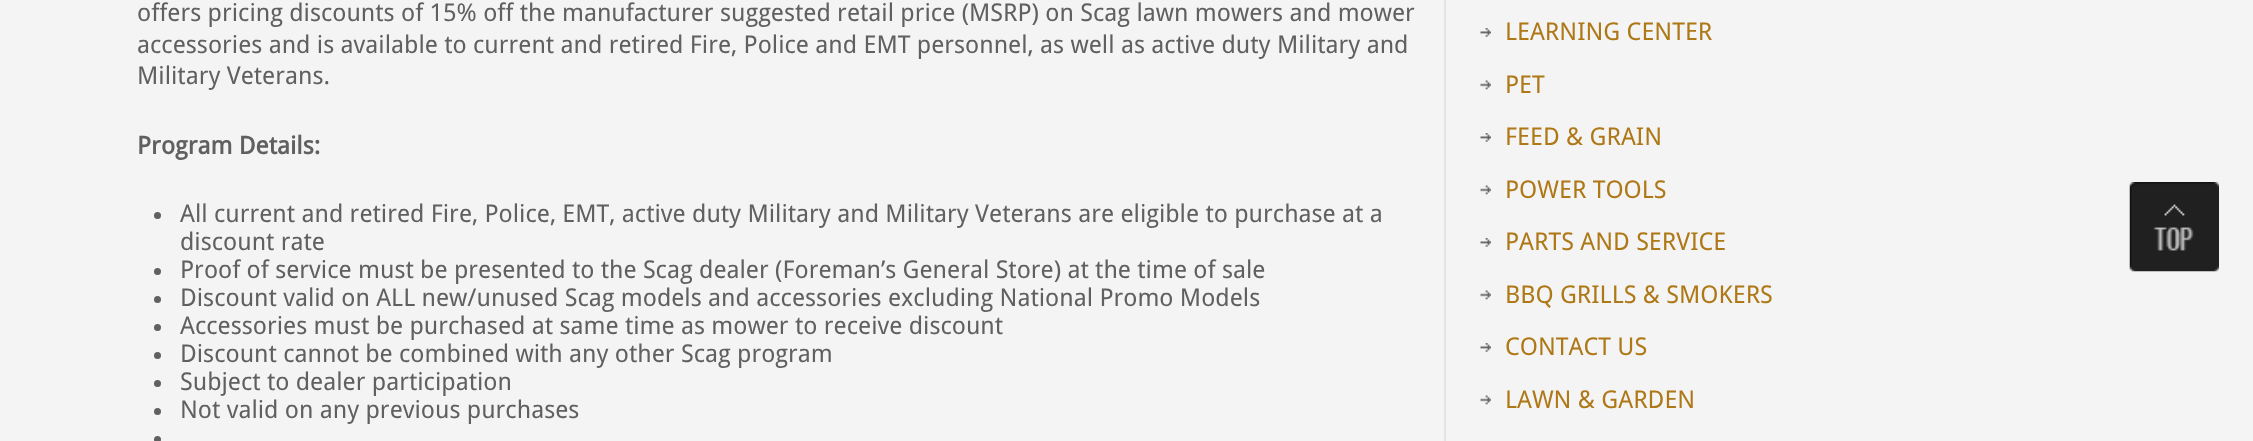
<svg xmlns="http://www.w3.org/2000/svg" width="2253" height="441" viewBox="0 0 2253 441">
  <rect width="100%" height="100%" fill="rgb(244,244,244)"/>
  <rect x="1444" y="0" width="2" height="441" fill="rgb(227,227,227)"/>
  <g font-family="Droid Sans" font-size="24.5" fill="rgb(96,96,96)">
    <text>
      <tspan x="137" y="21">offers pricing discounts of 15% off the manufacturer suggested retail price (MSRP) on Scag lawn mowers and mower</tspan>
      <tspan x="137" y="53">accessories and is available to current and retired Fire, Police and EMT personnel, as well as active duty Military and</tspan>
      <tspan x="137" y="84">Military Veterans.</tspan>
    </text>
  </g>
  <text x="137" y="154" font-family="Droid Sans" font-size="24.5" font-weight="bold" fill="rgb(96,96,96)">Program Details:</text>
  <circle cx="157.5" cy="215.5" r="3.5" fill="rgb(96,96,96)"/>
  <g font-family="Droid Sans" font-size="24.5" fill="rgb(96,96,96)">
    <text>
      <tspan x="180" y="222">All current and retired Fire, Police, EMT, active duty Military and Military Veterans are eligible to purchase at a</tspan>
      <tspan x="180" y="250">discount rate</tspan>
    </text>
  </g>
  <circle cx="157.5" cy="271.5" r="3.5" fill="rgb(96,96,96)"/>
  <text x="180" y="278" font-family="Droid Sans" font-size="24.5" fill="rgb(96,96,96)">Proof of service must be presented to the Scag dealer (Foreman’s General Store) at the time of sale</text>
  <circle cx="157.5" cy="299.5" r="3.5" fill="rgb(96,96,96)"/>
  <text x="180" y="306" font-family="Droid Sans" font-size="24.5" fill="rgb(96,96,96)">Discount valid on ALL new/unused Scag models and accessories excluding National Promo Models</text>
  <circle cx="157.5" cy="327.5" r="3.5" fill="rgb(96,96,96)"/>
  <text x="180" y="334" font-family="Droid Sans" font-size="24.5" fill="rgb(96,96,96)">Accessories must be purchased at same time as mower to receive discount</text>
  <circle cx="157.5" cy="355.5" r="3.5" fill="rgb(96,96,96)"/>
  <text x="180" y="362" font-family="Droid Sans" font-size="24.5" fill="rgb(96,96,96)">Discount cannot be combined with any other Scag program</text>
  <circle cx="157.5" cy="383.5" r="3.5" fill="rgb(96,96,96)"/>
  <text x="180" y="390" font-family="Droid Sans" font-size="24.5" fill="rgb(96,96,96)">Subject to dealer participation</text>
  <circle cx="157.5" cy="411.5" r="3.5" fill="rgb(96,96,96)"/>
  <text x="180" y="418" font-family="Droid Sans" font-size="24.5" fill="rgb(96,96,96)">Not valid on any previous purchases</text>
  <circle cx="157.5" cy="439.5" r="3.5" fill="rgb(96,96,96)"/>
  <image x="1480" y="28" width="11" height="9" href="pic1.png"/>
  <text x="1505" y="40" font-family="Droid Sans" font-size="24.5" fill="rgb(175,120,23)">LEARNING CENTER</text>
  <image x="1480" y="80" width="11" height="10" href="pic2.png"/>
  <text x="1505" y="93" font-family="Droid Sans" font-size="24.5" fill="rgb(175,120,23)">PET</text>
  <image x="1480" y="133" width="11" height="9" href="pic1.png"/>
  <text x="1505" y="145" font-family="Droid Sans" font-size="24.5" fill="rgb(175,120,23)">FEED &amp; GRAIN</text>
  <image x="1480" y="185" width="11" height="10" href="pic2.png"/>
  <text x="1505" y="198" font-family="Droid Sans" font-size="24.5" fill="rgb(175,120,23)">POWER TOOLS</text>
  <image x="1480" y="238" width="11" height="9" href="pic1.png"/>
  <text x="1505" y="250" font-family="Droid Sans" font-size="24.5" fill="rgb(175,120,23)">PARTS AND SERVICE</text>
  <image x="1480" y="290" width="11" height="10" href="pic2.png"/>
  <text x="1505" y="303" font-family="Droid Sans" font-size="24.5" fill="rgb(175,120,23)">BBQ GRILLS &amp; SMOKERS</text>
  <image x="1480" y="343" width="11" height="9" href="pic1.png"/>
  <text x="1505" y="355" font-family="Droid Sans" font-size="24.5" fill="rgb(175,120,23)">CONTACT US</text>
  <image x="1480" y="395" width="11" height="10" href="pic2.png"/>
  <text x="1505" y="408" font-family="Droid Sans" font-size="24.5" fill="rgb(175,120,23)">LAWN &amp; GARDEN</text>
  <image x="2129" y="182" width="90" height="90" href="pic3.png"/>
</svg>
